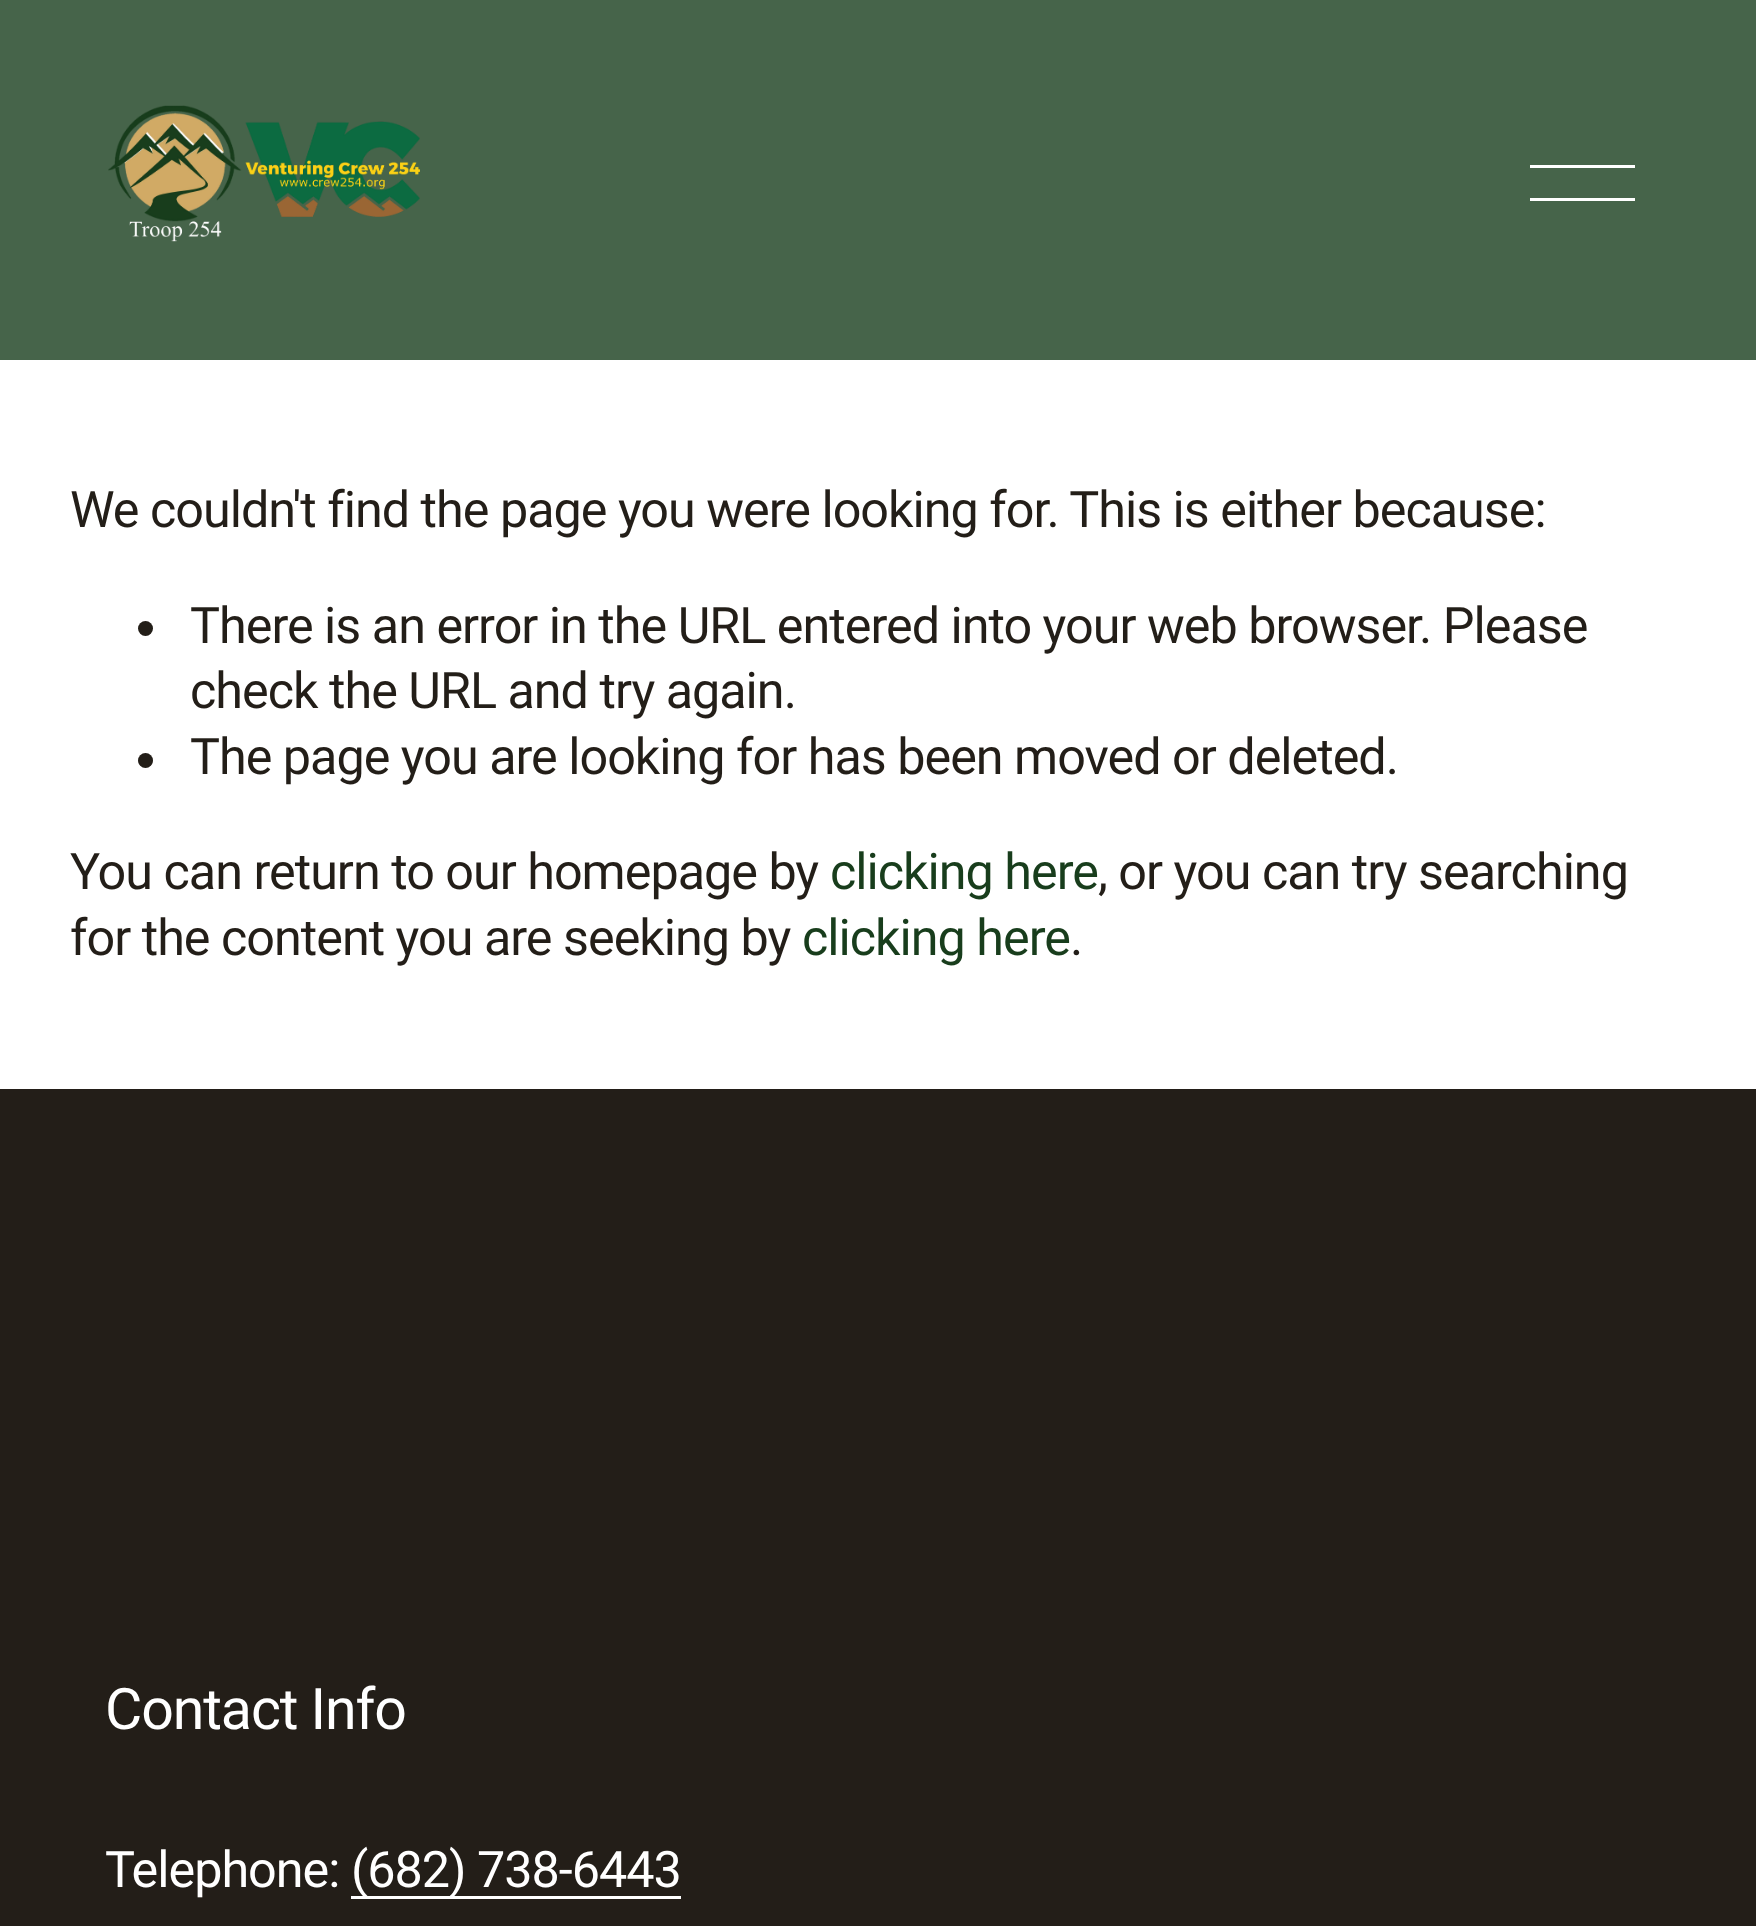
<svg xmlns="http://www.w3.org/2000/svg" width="1756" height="1926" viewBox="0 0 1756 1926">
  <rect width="100%" height="100%" fill="rgb(255,255,255)"/>
  <rect x="0" y="0" width="1756" height="360" fill="rgb(70,100,74)"/>
  <image x="108" y="105" width="312" height="137" href="pic1.png"/>
  <rect x="1530" y="165" width="105" height="3" fill="rgb(255,255,255)"/>
  <rect x="1530" y="198" width="105" height="3" fill="rgb(255,255,255)"/>
  <text x="70" y="527" font-family="Roboto" font-size="50.3" letter-spacing="-1" fill="rgb(35,30,24)">We couldn't find the page you were looking for. This is either because:</text>
  <circle cx="145.5" cy="628.5" r="7.5" fill="rgb(35,30,24)"/>
  <g font-family="Roboto" font-size="50.3" letter-spacing="-1" fill="rgb(35,30,24)">
    <text>
      <tspan x="190" y="643">There is an error in the URL entered into your web browser. Please</tspan>
      <tspan x="190" y="708">check the URL and try again.</tspan>
    </text>
  </g>
  <circle cx="145.5" cy="760.5" r="7.5" fill="rgb(35,30,24)"/>
  <g font-family="Roboto" font-size="50.3" letter-spacing="-1" fill="rgb(35,30,24)">
    <text x="190" y="774">The page you are looking for has been moved or deleted.</text>
    <text x="70" y="889">You can return to our homepage by</text>
  </g>
  <text x="830" y="889" font-family="Roboto" font-size="50.3" letter-spacing="-1" fill="rgb(24,61,28)">clicking here</text>
  <g font-family="Roboto" font-size="50.3" letter-spacing="-1" fill="rgb(35,30,24)">
    <text x="1098" y="889">, or you can try searching</text>
    <text x="70" y="955">for the content you are seeking by</text>
  </g>
  <text x="802" y="955" font-family="Roboto" font-size="50.3" letter-spacing="-1" fill="rgb(24,61,28)">clicking here</text>
  <text x="1070" y="955" font-family="Roboto" font-size="50.3" letter-spacing="-1" fill="rgb(35,30,24)">.</text>
  <rect x="0" y="1089" width="1756" height="837" fill="rgb(35,30,24)"/>
  <text x="105" y="1729" font-family="Roboto" font-size="57.25" letter-spacing="-1.1" fill="rgb(255,255,255)">Contact Info</text>
  <text x="105" y="1887" font-family="Roboto" font-size="50.3" letter-spacing="-1" fill="rgb(255,255,255)">Telephone:</text>
  <rect x="351" y="1896" width="330" height="3" fill="rgb(255,255,255)"/>
  <text x="351" y="1887" font-family="Roboto" font-size="50.3" letter-spacing="-1" fill="rgb(255,255,255)">(682) 738-6443</text>
</svg>
